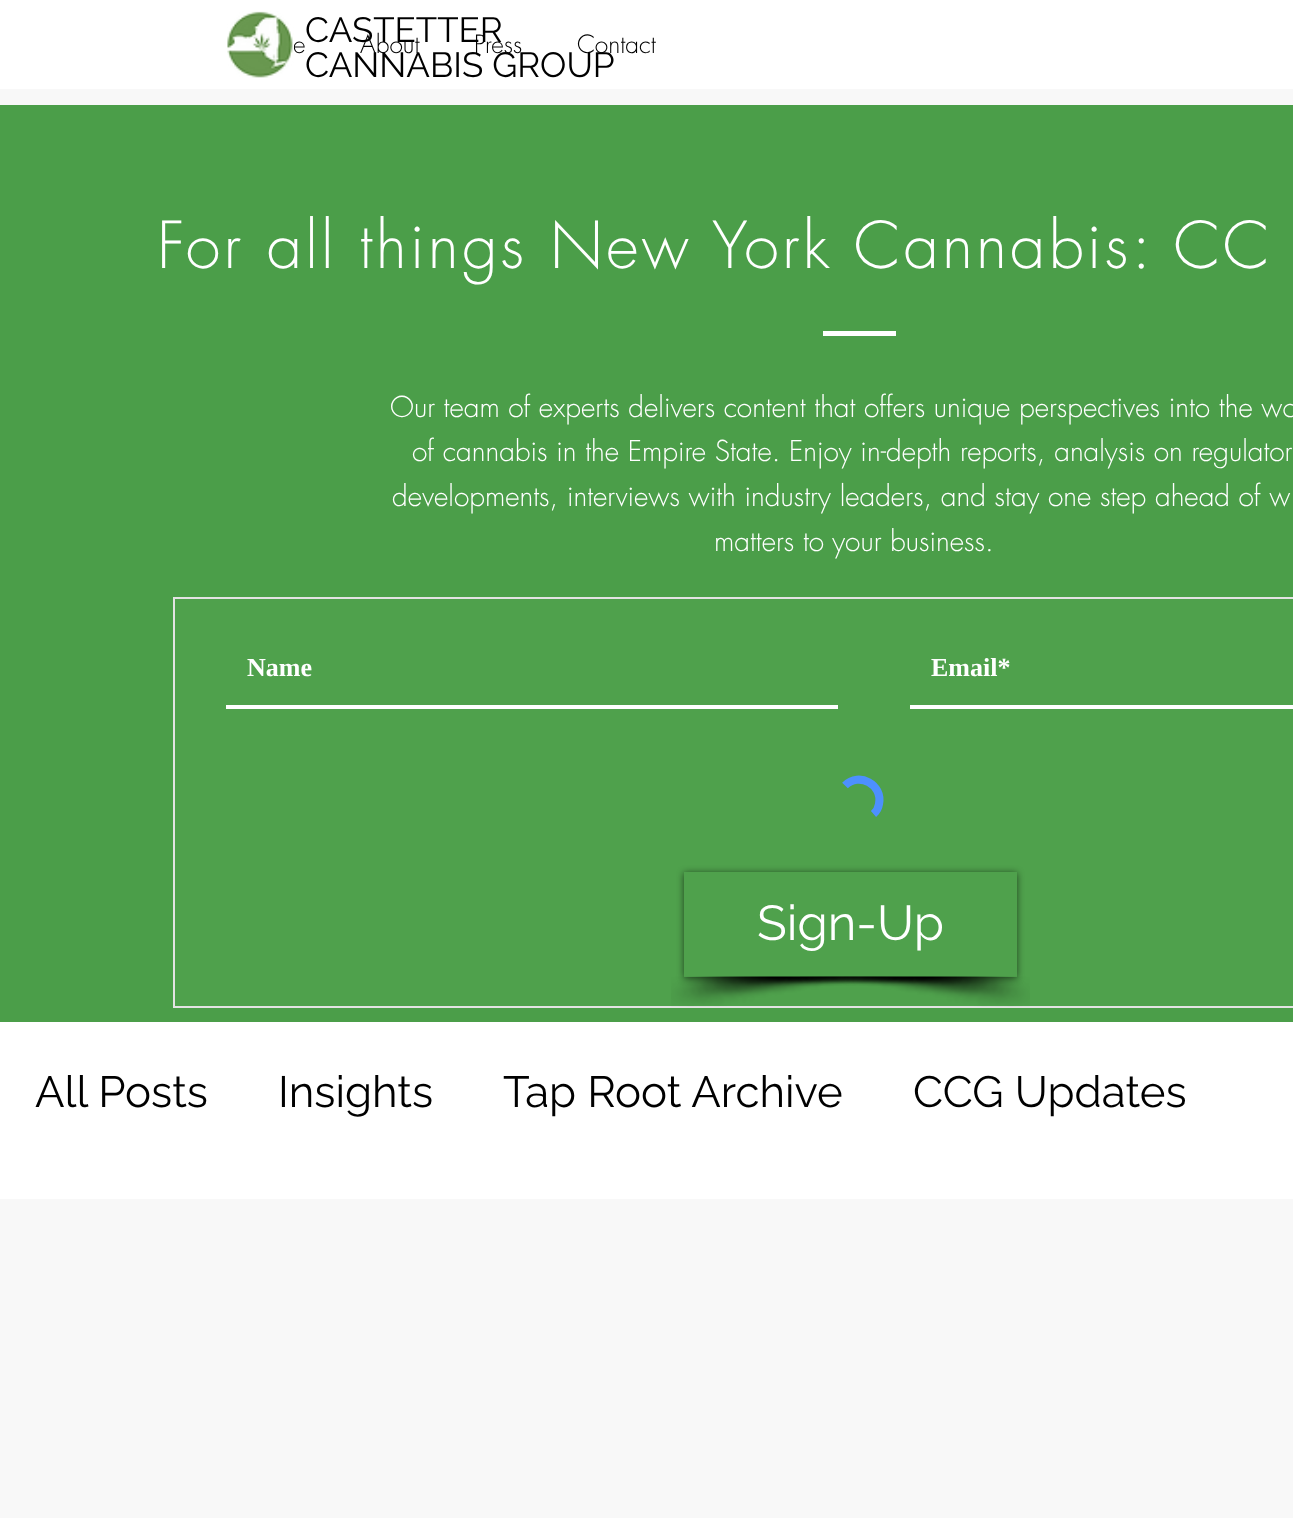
<svg xmlns="http://www.w3.org/2000/svg" width="1293" height="1518" viewBox="0 0 1293 1518">
  <defs>
    <clipPath id="clip1"><path d="M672 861H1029V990H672ZM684 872H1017V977H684Z" clip-rule="evenodd"/></clipPath>
  </defs>
  <rect width="100%" height="100%" fill="rgb(248,248,248)"/>
  <rect x="0" y="0" width="1293" height="89" fill="rgb(255,255,255)"/>
  <text x="293" y="53" font-family="futura" font-size="24.5" font-weight="300" fill="rgb(0,0,0)">e</text>
  <image x="227" y="11" width="67" height="67" href="pic1.png"/>
  <g font-family="futura" font-size="24.5" font-weight="300" fill="rgb(0,0,0)">
    <text x="360" y="53">About</text>
    <text x="474" y="53">Press</text>
  </g>
  <g font-family="Raleway" font-size="35" fill="rgb(0,0,0)">
    <text>
      <tspan x="305" y="42">CASTETTER</tspan>
      <tspan x="305" y="77">CANNABIS GROUP</tspan>
    </text>
  </g>
  <text x="577" y="53" font-family="futura" font-size="24.5" font-weight="300" fill="rgb(0,0,0)">Contact</text>
  <rect x="0" y="105" width="1293" height="917" fill="rgb(75,158,73)"/>
  <text x="157" y="268" font-family="futura" font-size="63" font-weight="300" letter-spacing="3.15" fill="rgb(255,255,255)">For all things New York Cannabis: CC</text>
  <rect x="823" y="331" width="73" height="5" fill="rgb(255,255,255)"/>
  <g font-family="futura" font-size="28" font-weight="300" fill="rgb(255,255,255)">
    <text x="390" y="417">Our team of experts delivers content that offers unique perspectives into the wo</text>
    <text x="412" y="461">of cannabis in the Empire State. Enjoy in-depth reports, analysis on regulator</text>
    <text x="392" y="506">developments, interviews with industry leaders, and stay one step ahead of w</text>
    <text x="714" y="551">matters to your business.</text>
  </g>
  <rect x="174" y="598" width="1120" height="409" fill="rgb(79,161,76)" stroke="rgb(227,227,227)" stroke-width="2"/>
  <rect x="226" y="705" width="612" height="4" fill="rgb(255,255,255)"/>
  <text x="247" y="676" font-family="Liberation Serif" font-size="26" font-weight="bold" fill="rgb(255,255,255)">Name</text>
  <rect x="910" y="705" width="383" height="4" fill="rgb(255,255,255)"/>
  <text x="931" y="676" font-family="Liberation Serif" font-size="26" font-weight="bold" fill="rgb(255,255,255)">Email*</text>
  <path d="M845 785.5C859 771.5 883 784.5 879 804C878.5 807.5 876.5 811.5 873.5 814" fill="none" stroke="rgb(77,144,254)" stroke-width="8.1"/>
  <image x="671" y="976" width="255" height="31" href="pic2.png"/>
  <image x="800" y="976" width="230" height="31" href="pic3.png"/>
  <g clip-path="url(#clip1)">
    <rect x="684" y="873" width="333" height="105" fill="rgba(0,0,0,0.6)" filter="blur(3.5px)"/>
  </g>
  <text x="757" y="940" font-family="Raleway" font-size="49" fill="rgb(255,255,255)">Sign-Up</text>
  <rect x="0" y="1022" width="1293" height="177" fill="rgb(255,255,255)"/>
  <g font-family="Raleway" font-size="43.75" fill="rgb(0,0,0)">
    <text x="35" y="1107">All Posts</text>
    <text x="278" y="1107">Insights</text>
    <text x="503" y="1107">Tap Root Archive</text>
    <text x="913" y="1107">CCG Updates</text>
  </g>
</svg>
